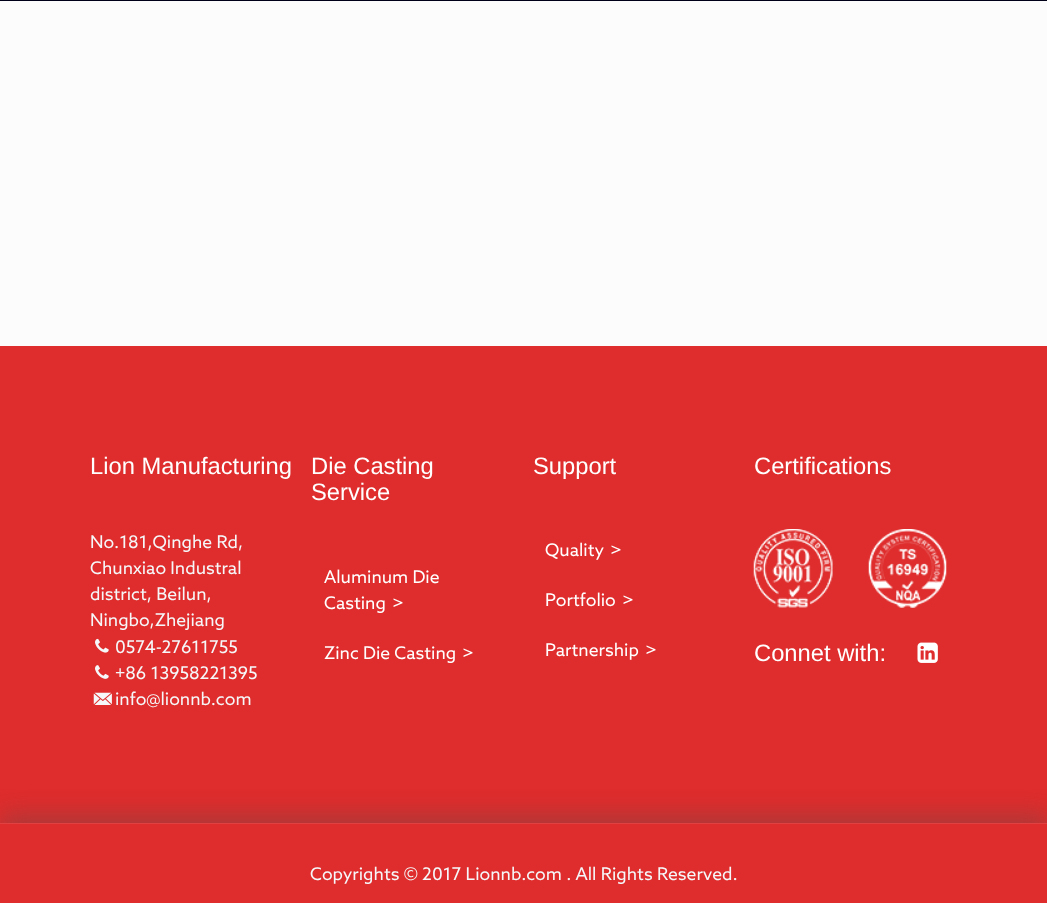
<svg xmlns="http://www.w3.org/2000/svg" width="1047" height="903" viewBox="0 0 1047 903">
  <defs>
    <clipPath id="clip1"><rect x="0" y="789" width="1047" height="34"/></clipPath>
  </defs>
  <rect width="100%" height="100%" fill="rgb(252,252,252)"/>
  <rect x="0" y="0" width="1047" height="1" fill="rgb(0,1,25)"/>
  <rect x="0" y="346" width="1047" height="557" fill="rgb(223,44,44)"/>
  <text x="90" y="474" font-family="Liberation Sans" font-size="23.75" fill="rgb(255,255,255)">Lion Manufacturing</text>
  <g font-family="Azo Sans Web" font-size="17.5" fill="rgb(245,247,249)">
    <text>
      <tspan x="90" y="548">No.181,Qinghe Rd,</tspan>
      <tspan x="90" y="574">Chunxiao Industral</tspan>
      <tspan x="90" y="600">district, Beilun,</tspan>
      <tspan x="90" y="626">Ningbo,Zhejiang</tspan>
    </text>
  </g>
  <image x="95" y="638" width="14" height="15" href="pic1.png"/>
  <text x="115" y="653" font-family="Azo Sans Web" font-size="17.5" fill="rgb(245,247,249)">0574-27611755</text>
  <image x="95" y="665" width="14" height="14" href="pic2.png"/>
  <text x="115" y="679" font-family="Azo Sans Web" font-size="17.5" fill="rgb(245,247,249)">+86 13958221395</text>
  <image x="93" y="692" width="19" height="13" href="pic3.png"/>
  <text x="115" y="705" font-family="Azo Sans Web" font-size="17.5" fill="rgb(245,247,249)">info@lionnb.com</text>
  <g font-family="Liberation Sans" font-size="23.75" fill="rgb(255,255,255)">
    <text>
      <tspan x="311" y="474">Die Casting</tspan>
      <tspan x="311" y="500">Service</tspan>
    </text>
  </g>
  <g font-family="Azo Sans Web" font-size="17.5" fill="rgb(255,255,255)">
    <text>
      <tspan x="324" y="583">Aluminum Die</tspan>
      <tspan x="324" y="609">Casting</tspan>
    </text>
    <text x="392" y="609">&gt;</text>
    <text x="324" y="659">Zinc Die Casting</text>
    <text x="462" y="659">&gt;</text>
  </g>
  <text x="533" y="474" font-family="Liberation Sans" font-size="23.75" fill="rgb(255,255,255)">Support</text>
  <g font-family="Azo Sans Web" font-size="17.5" fill="rgb(255,255,255)">
    <text x="545" y="556">Quality</text>
    <text x="610" y="556">&gt;</text>
    <text x="545" y="606">Portfolio</text>
    <text x="622" y="606">&gt;</text>
    <text x="545" y="656">Partnership</text>
    <text x="645" y="656">&gt;</text>
  </g>
  <text x="754" y="474" font-family="Liberation Sans" font-size="23.75" fill="rgb(255,255,255)">Certifications</text>
  <image x="753" y="529" width="80" height="79" href="pic4.png"/>
  <image x="868" y="529" width="79" height="79" href="pic5.png"/>
  <text x="754" y="661" font-family="Liberation Sans" font-size="23.75" fill="rgb(255,255,255)">Connet with:</text>
  <image x="917" y="642" width="21" height="21" href="pic6.png"/>
  <g clip-path="url(#clip1)">
    <rect x="1" y="815" width="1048" height="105" fill="rgb(171,57,57)" filter="blur(12.5px)"/>
  </g>
  <rect x="0" y="823" width="1047" height="1" fill="rgb(226,65,65)"/>
  <text x="310" y="880" font-family="Azo Sans Web" font-size="17.5" fill="rgb(245,247,249)">Copyrights © 2017 Lionnb.com . All Rights Reserved.</text>
</svg>
